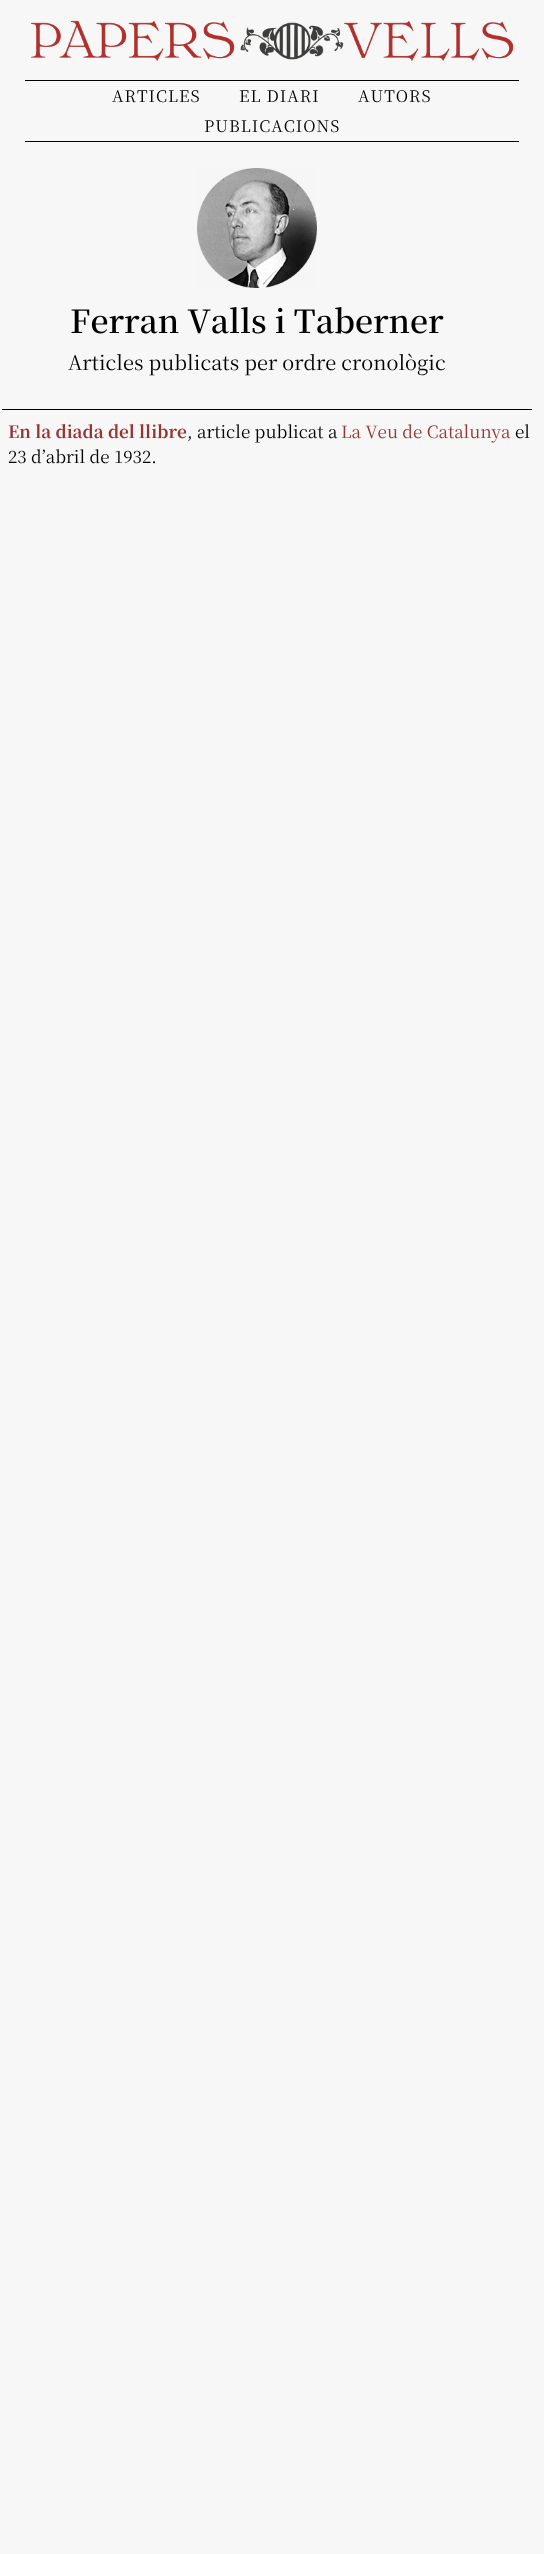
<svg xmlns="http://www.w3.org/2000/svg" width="544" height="2554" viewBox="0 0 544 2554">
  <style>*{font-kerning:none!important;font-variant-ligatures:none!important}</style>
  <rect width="100%" height="100%" fill="rgb(247,247,247)"/>
  <image x="31" y="20" width="483" height="41" href="pic1.png"/>
  <rect x="25" y="80" width="494" height="1" fill="rgb(0,0,0)"/>
  <rect x="25" y="141" width="494" height="1" fill="rgb(0,0,0)"/>
  <g font-family="Noto Serif KR" font-size="16" letter-spacing="1" fill="rgb(0,0,0)">
    <text x="112" y="102">ARTICLES</text>
    <text x="239" y="102">EL DIARI</text>
    <text x="358" y="102">AUTORS</text>
    <text x="204" y="132">PUBLICACIONS</text>
  </g>
  <image x="197" y="168" width="120" height="120" href="pic2.png"/>
  <text x="70" y="333" font-family="Noto Serif KR" font-size="32" font-weight="600" fill="rgb(0,0,0)">Ferran Valls i Taberner</text>
  <text x="68" y="370" font-family="Noto Serif KR" font-size="20" fill="rgb(0,0,0)">Articles publicats per ordre cronològic</text>
  <rect x="2" y="409" width="530" height="1" fill="rgb(0,0,0)"/>
  <text x="8" y="438" font-family="Noto Serif KR" font-size="17" font-weight="bold" fill="rgb(151,51,48)">En la diada del llibre</text>
  <text x="187" y="438" font-family="Noto Serif KR" font-size="17" fill="rgb(0,0,0)">, article publicat a</text>
  <text x="341" y="438" font-family="Noto Serif KR" font-size="17" fill="rgb(151,51,48)">La Veu de Catalunya</text>
  <g font-family="Noto Serif KR" font-size="17" fill="rgb(0,0,0)">
    <text x="515" y="438">el</text>
    <text x="8" y="463">23 d’abril de 1932.</text>
  </g>
</svg>
